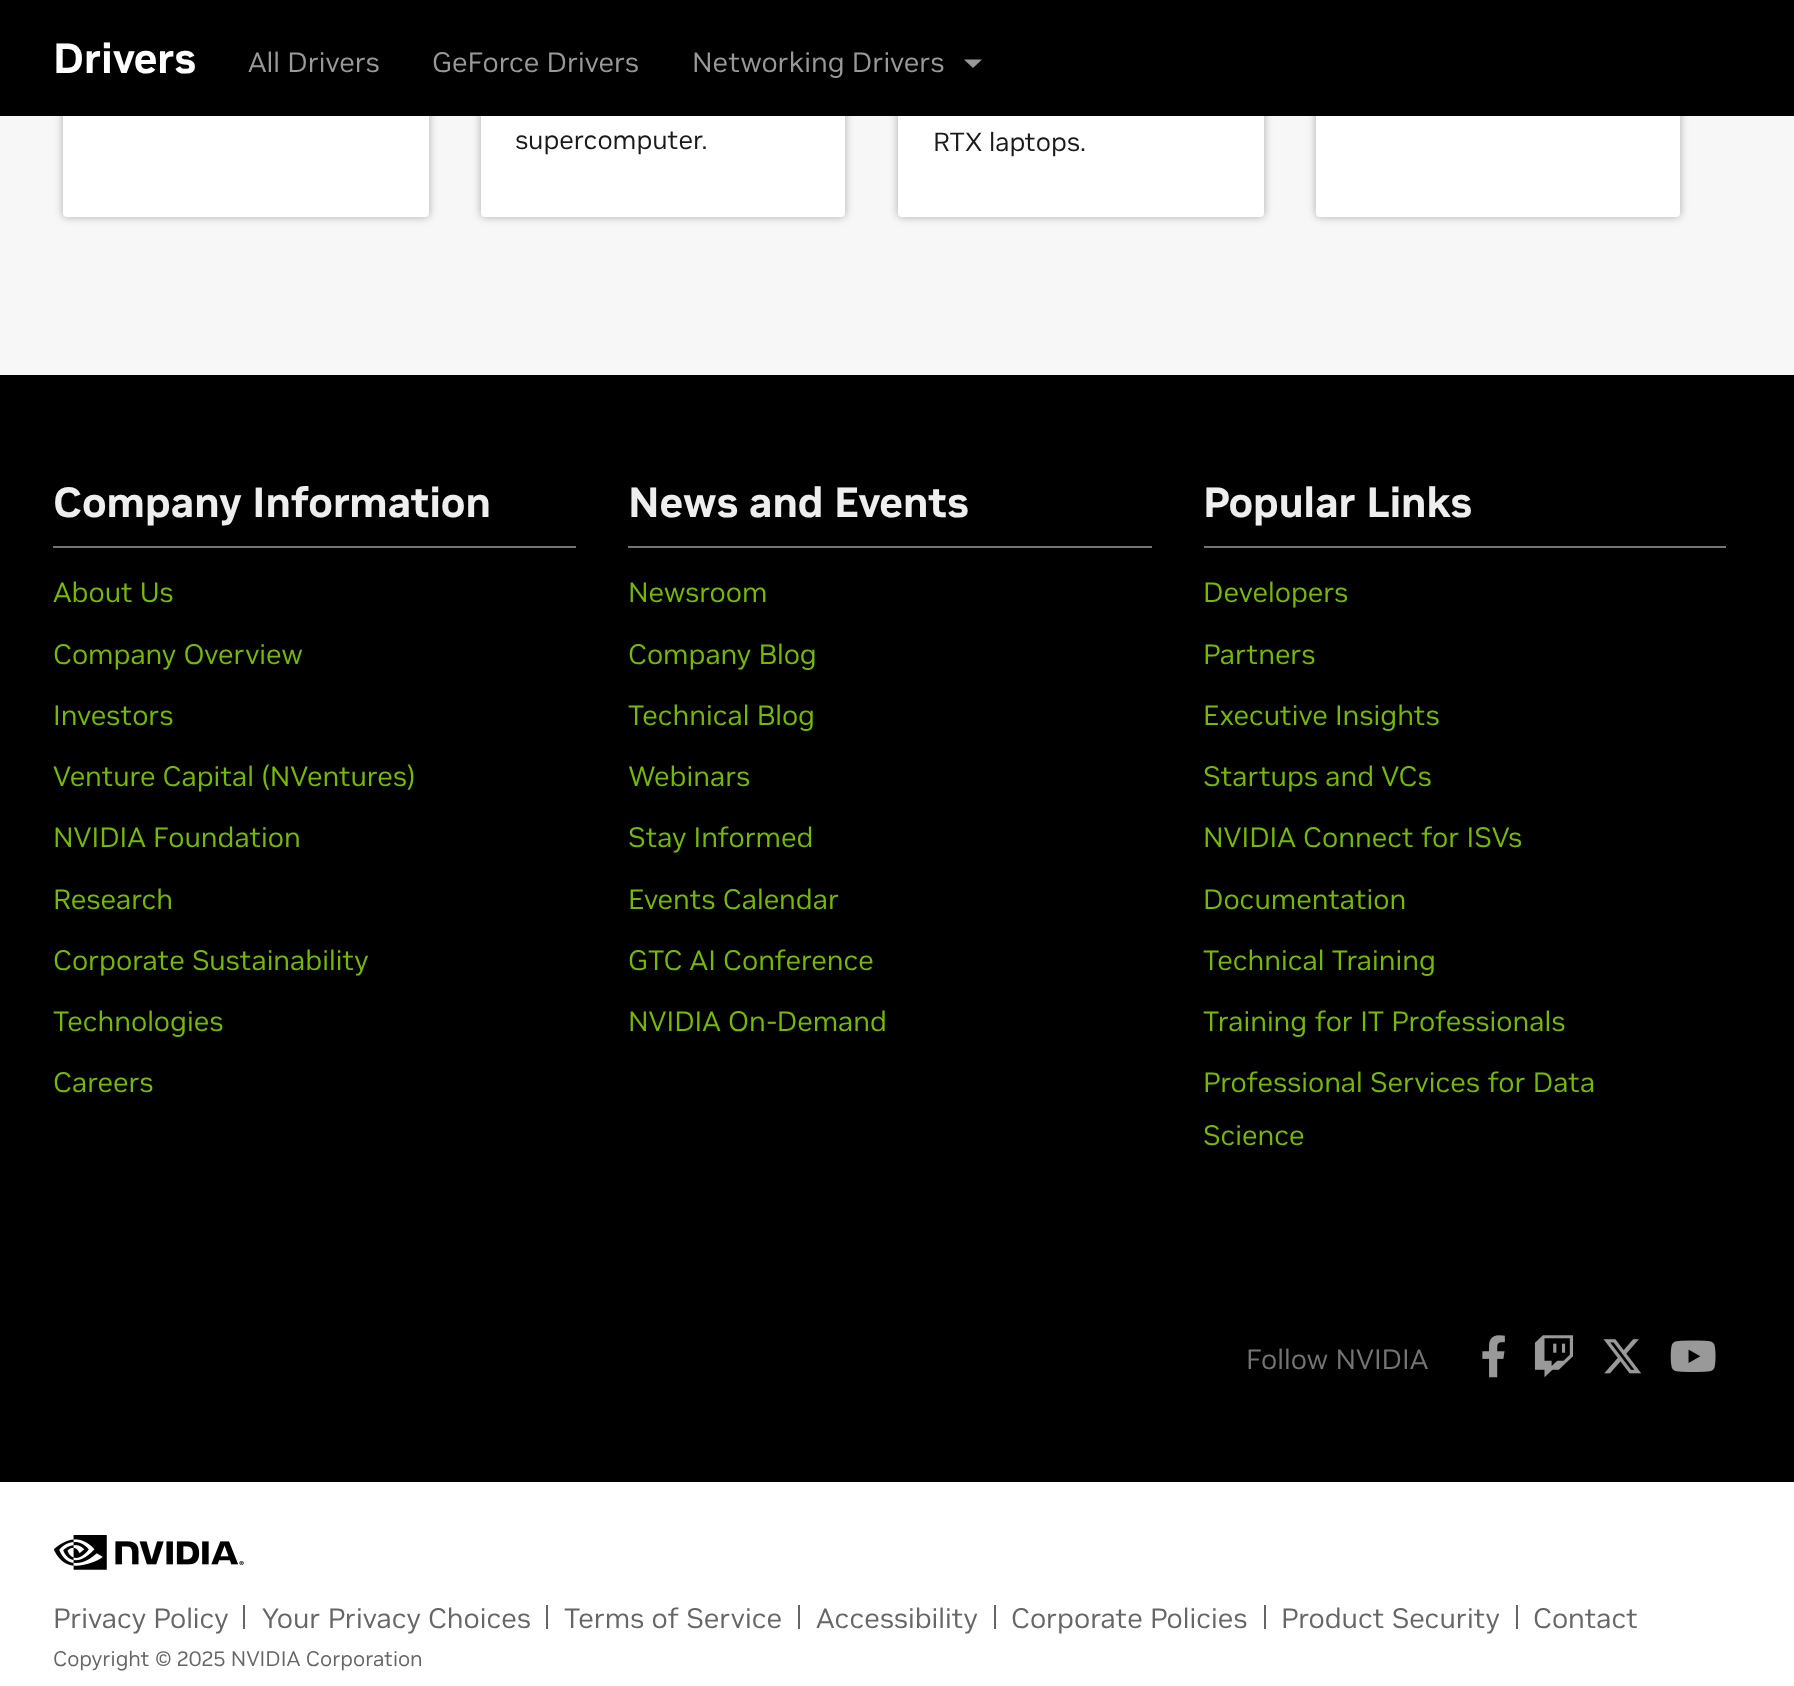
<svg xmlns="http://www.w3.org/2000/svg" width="1794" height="1686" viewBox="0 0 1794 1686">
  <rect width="100%" height="100%" fill="rgb(255,255,255)"/>
  <rect x="0" y="116" width="1794" height="259" fill="rgb(247,247,247)"/>
  <rect x="63" y="-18" width="366" height="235" rx="4" fill="rgba(0,0,0,0.3)" filter="blur(4.5px)"/>
  <rect x="63" y="-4" width="366" height="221" rx="4" fill="rgb(255,255,255)"/>
  <rect x="481" y="-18" width="364" height="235" rx="4" fill="rgba(0,0,0,0.3)" filter="blur(4.5px)"/>
  <rect x="481" y="-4" width="364" height="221" rx="4" fill="rgb(255,255,255)"/>
  <rect x="898" y="-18" width="366" height="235" rx="4" fill="rgba(0,0,0,0.3)" filter="blur(4.5px)"/>
  <rect x="898" y="-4" width="366" height="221" rx="4" fill="rgb(255,255,255)"/>
  <rect x="1316" y="-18" width="364" height="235" rx="4" fill="rgba(0,0,0,0.3)" filter="blur(4.5px)"/>
  <rect x="1316" y="-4" width="364" height="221" rx="4" fill="rgb(255,255,255)"/>
  <rect x="0" y="0" width="1794" height="116" fill="rgb(0,0,0)"/>
  <text x="53" y="73" font-family="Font" font-size="42" font-weight="bold" fill="rgb(255,255,255)">Drivers</text>
  <g font-family="Font" font-size="28" fill="rgb(153,153,153)">
    <text x="248" y="72">All Drivers</text>
    <text x="432" y="72">GeForce Drivers</text>
    <text x="692" y="72">Networking Drivers</text>
  </g>
  <path d="M964 59.5L973 68L982 59.5Z" fill="rgb(153,153,153)"/>
  <g font-family="Font" font-size="26.25" fill="rgb(26,26,26)">
    <text x="515" y="149">supercomputer.</text>
    <text x="933" y="151">RTX laptops.</text>
  </g>
  <rect x="0" y="375" width="1794" height="1107" fill="rgb(0,0,0)"/>
  <rect x="53" y="546" width="523" height="2" fill="rgb(116,116,116)"/>
  <text x="53" y="517" font-family="Font" font-size="42" font-weight="bold" fill="rgb(238,238,238)">Company Information</text>
  <g font-family="Font" font-size="28" fill="rgb(118,185,0)">
    <text x="53" y="602">About Us</text>
    <text x="53" y="664">Company Overview</text>
    <text x="53" y="725">Investors</text>
    <text x="53" y="786">Venture Capital (NVentures)</text>
    <text x="53" y="847">NVIDIA Foundation</text>
    <text x="53" y="909">Research</text>
    <text x="53" y="970">Corporate Sustainability</text>
    <text x="53" y="1031">Technologies</text>
    <text x="53" y="1092">Careers</text>
  </g>
  <rect x="628" y="546" width="524" height="2" fill="rgb(116,116,116)"/>
  <text x="628" y="517" font-family="Font" font-size="42" font-weight="bold" fill="rgb(238,238,238)">News and Events</text>
  <g font-family="Font" font-size="28" fill="rgb(118,185,0)">
    <text x="628" y="602">Newsroom</text>
    <text x="628" y="664">Company Blog</text>
    <text x="628" y="725">Technical Blog</text>
    <text x="628" y="786">Webinars</text>
    <text x="628" y="847">Stay Informed</text>
    <text x="628" y="909">Events Calendar</text>
    <text x="628" y="970">GTC AI Conference</text>
    <text x="628" y="1031">NVIDIA On-Demand</text>
  </g>
  <rect x="1204" y="546" width="522" height="2" fill="rgb(116,116,116)"/>
  <text x="1203" y="517" font-family="Font" font-size="42" font-weight="bold" fill="rgb(238,238,238)">Popular Links</text>
  <g font-family="Font" font-size="28" fill="rgb(118,185,0)">
    <text x="1203" y="602">Developers</text>
    <text x="1203" y="664">Partners</text>
    <text x="1203" y="725">Executive Insights</text>
    <text x="1203" y="786">Startups and VCs</text>
    <text x="1203" y="847">NVIDIA Connect for ISVs</text>
    <text x="1203" y="909">Documentation</text>
    <text x="1203" y="970">Technical Training</text>
    <text x="1203" y="1031">Training for IT Professionals</text>
    <text>
      <tspan x="1203" y="1092">Professional Services for Data</tspan>
      <tspan x="1203" y="1145">Science</tspan>
    </text>
  </g>
  <text x="1246" y="1369" font-family="Font" font-size="28" fill="rgb(116,116,116)">Follow NVIDIA</text>
  <image x="1482" y="1335" width="23" height="43" href="pic1.png"/>
  <image x="1534" y="1335" width="40" height="43" href="pic2.png"/>
  <image x="1603" y="1339" width="39" height="35" href="pic3.png"/>
  <image x="1670" y="1340" width="46" height="32" href="pic4.png"/>
  <image x="53" y="1535" width="191" height="35" href="pic5.png"/>
  <text x="53" y="1628" font-family="Font" font-size="28" fill="rgb(102,102,102)">Privacy Policy</text>
  <rect x="243" y="1605" width="2" height="24" fill="rgb(102,102,102)"/>
  <text x="262" y="1628" font-family="Font" font-size="28" fill="rgb(102,102,102)">Your Privacy Choices</text>
  <rect x="546" y="1605" width="2" height="24" fill="rgb(102,102,102)"/>
  <text x="564" y="1628" font-family="Font" font-size="28" fill="rgb(102,102,102)">Terms of Service</text>
  <rect x="798" y="1605" width="2" height="24" fill="rgb(102,102,102)"/>
  <text x="816" y="1628" font-family="Font" font-size="28" fill="rgb(102,102,102)">Accessibility</text>
  <rect x="994" y="1605" width="2" height="24" fill="rgb(102,102,102)"/>
  <text x="1011" y="1628" font-family="Font" font-size="28" fill="rgb(102,102,102)">Corporate Policies</text>
  <rect x="1264" y="1605" width="2" height="24" fill="rgb(102,102,102)"/>
  <text x="1281" y="1628" font-family="Font" font-size="28" fill="rgb(102,102,102)">Product Security</text>
  <rect x="1516" y="1605" width="2" height="24" fill="rgb(102,102,102)"/>
  <text x="1533" y="1628" font-family="Font" font-size="28" fill="rgb(102,102,102)">Contact</text>
  <text x="53" y="1666" font-family="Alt" font-size="21" fill="rgb(102,102,102)">Copyright © 2025 NVIDIA Corporation</text>
</svg>
